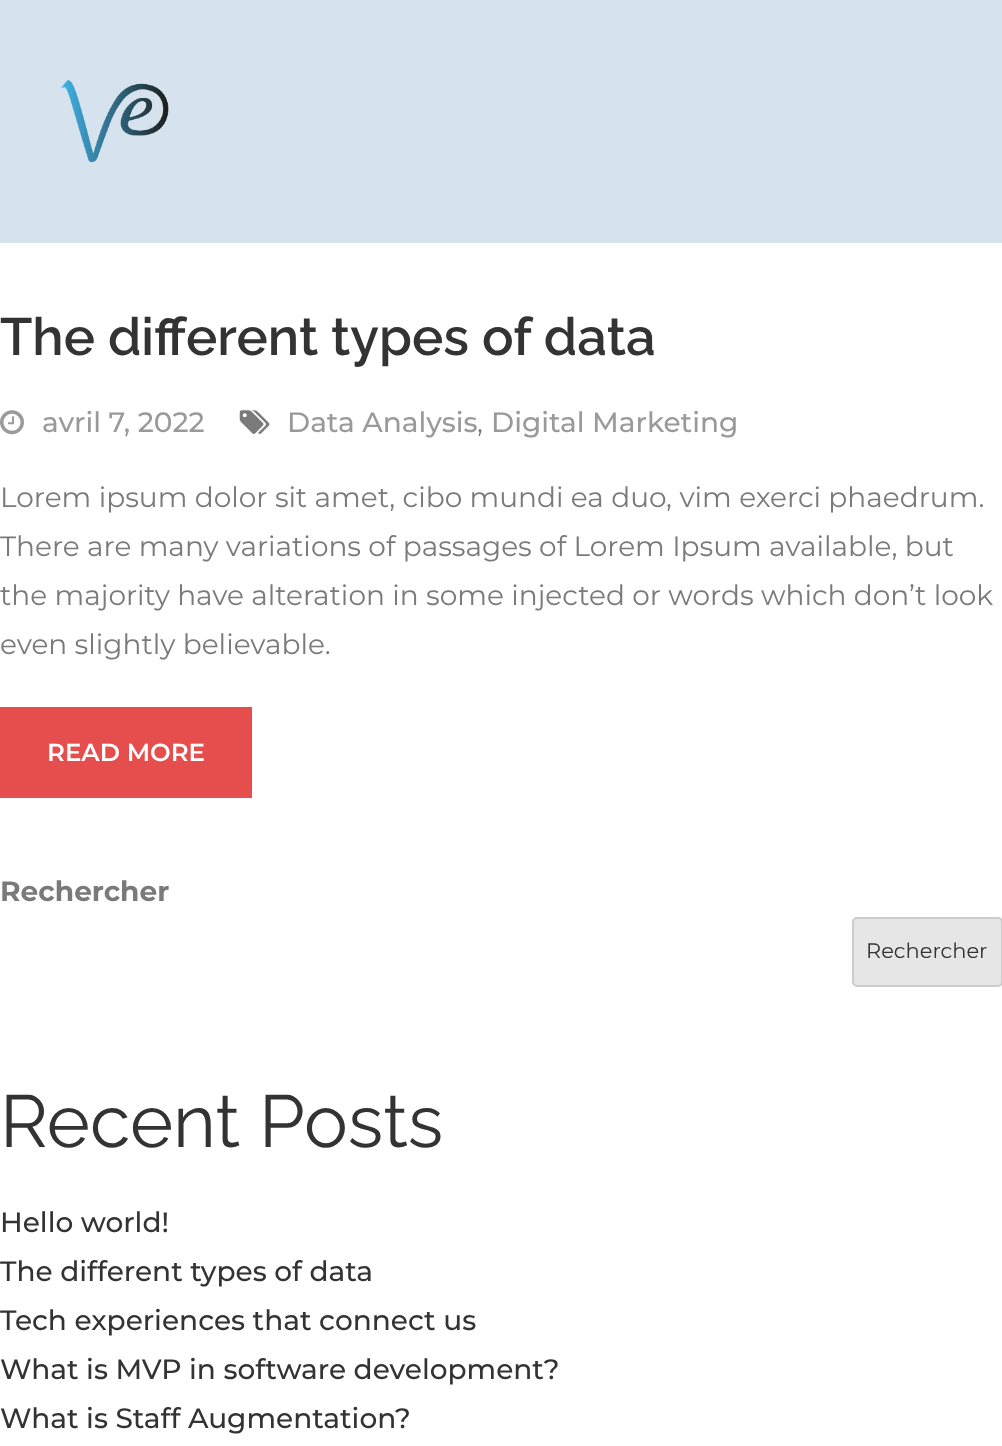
<svg xmlns="http://www.w3.org/2000/svg" width="1002" height="1446" viewBox="0 0 1002 1446">
  <rect width="100%" height="100%" fill="rgb(255,255,255)"/>
  <rect x="0" y="0" width="1002" height="243" fill="rgb(214,227,239)"/>
  <image x="61" y="79" width="108" height="84" href="pic1.png"/>
  <text x="0" y="355" font-family="Raleway" font-size="52.5" font-weight="600" fill="rgb(51,51,51)">The different types of data</text>
  <image x="0" y="410" width="24" height="25" href="pic2.png"/>
  <text x="42" y="432" font-family="Montserrat" font-size="28" font-weight="500" fill="rgb(154,154,154)">avril 7, 2022</text>
  <image x="239" y="410" width="31" height="24" href="pic3.png"/>
  <text x="287" y="432" font-family="Montserrat" font-size="28" font-weight="500" fill="rgb(154,154,154)">Data Analysis</text>
  <text x="477" y="432" font-family="Montserrat" font-size="28" fill="rgb(122,122,122)">,</text>
  <text x="491" y="432" font-family="Montserrat" font-size="28" font-weight="500" fill="rgb(154,154,154)">Digital Marketing</text>
  <g font-family="Montserrat" font-size="28" fill="rgb(122,122,122)">
    <text>
      <tspan x="0" y="507">Lorem ipsum dolor sit amet, cibo mundi ea duo, vim exerci phaedrum.</tspan>
      <tspan x="0" y="556">There are many variations of passages of Lorem Ipsum available, but</tspan>
      <tspan x="0" y="605">the majority have alteration in some injected or words which don’t look</tspan>
      <tspan x="0" y="654">even slightly believable.</tspan>
    </text>
  </g>
  <rect x="0" y="707" width="252" height="91" fill="rgb(230,78,78)"/>
  <text x="47" y="761" font-family="Montserrat" font-size="24.5" font-weight="600" fill="rgb(255,255,255)">READ MORE</text>
  <text x="0" y="901" font-family="Montserrat" font-size="28" font-weight="bold" fill="rgb(122,122,122)">Rechercher</text>
  <rect x="853" y="918" width="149" height="68" rx="4" fill="rgb(230,230,230)" stroke="rgb(204,204,204)" stroke-width="2"/>
  <text x="866" y="958" font-family="Montserrat" font-size="21" fill="rgb(51,51,51)">Rechercher</text>
  <text x="0" y="1147" font-family="Raleway" font-size="73.5" fill="rgb(51,51,51)">Recent Posts</text>
  <g font-family="Montserrat" font-size="28" font-weight="500" fill="rgb(51,51,51)">
    <text>
      <tspan x="0" y="1232">Hello world!</tspan>
      <tspan x="0" y="1281">The different types of data</tspan>
      <tspan x="0" y="1330">Tech experiences that connect us</tspan>
      <tspan x="0" y="1379">What is MVP in software development?</tspan>
      <tspan x="0" y="1428">What is Staff Augmentation?</tspan>
    </text>
  </g>
</svg>
